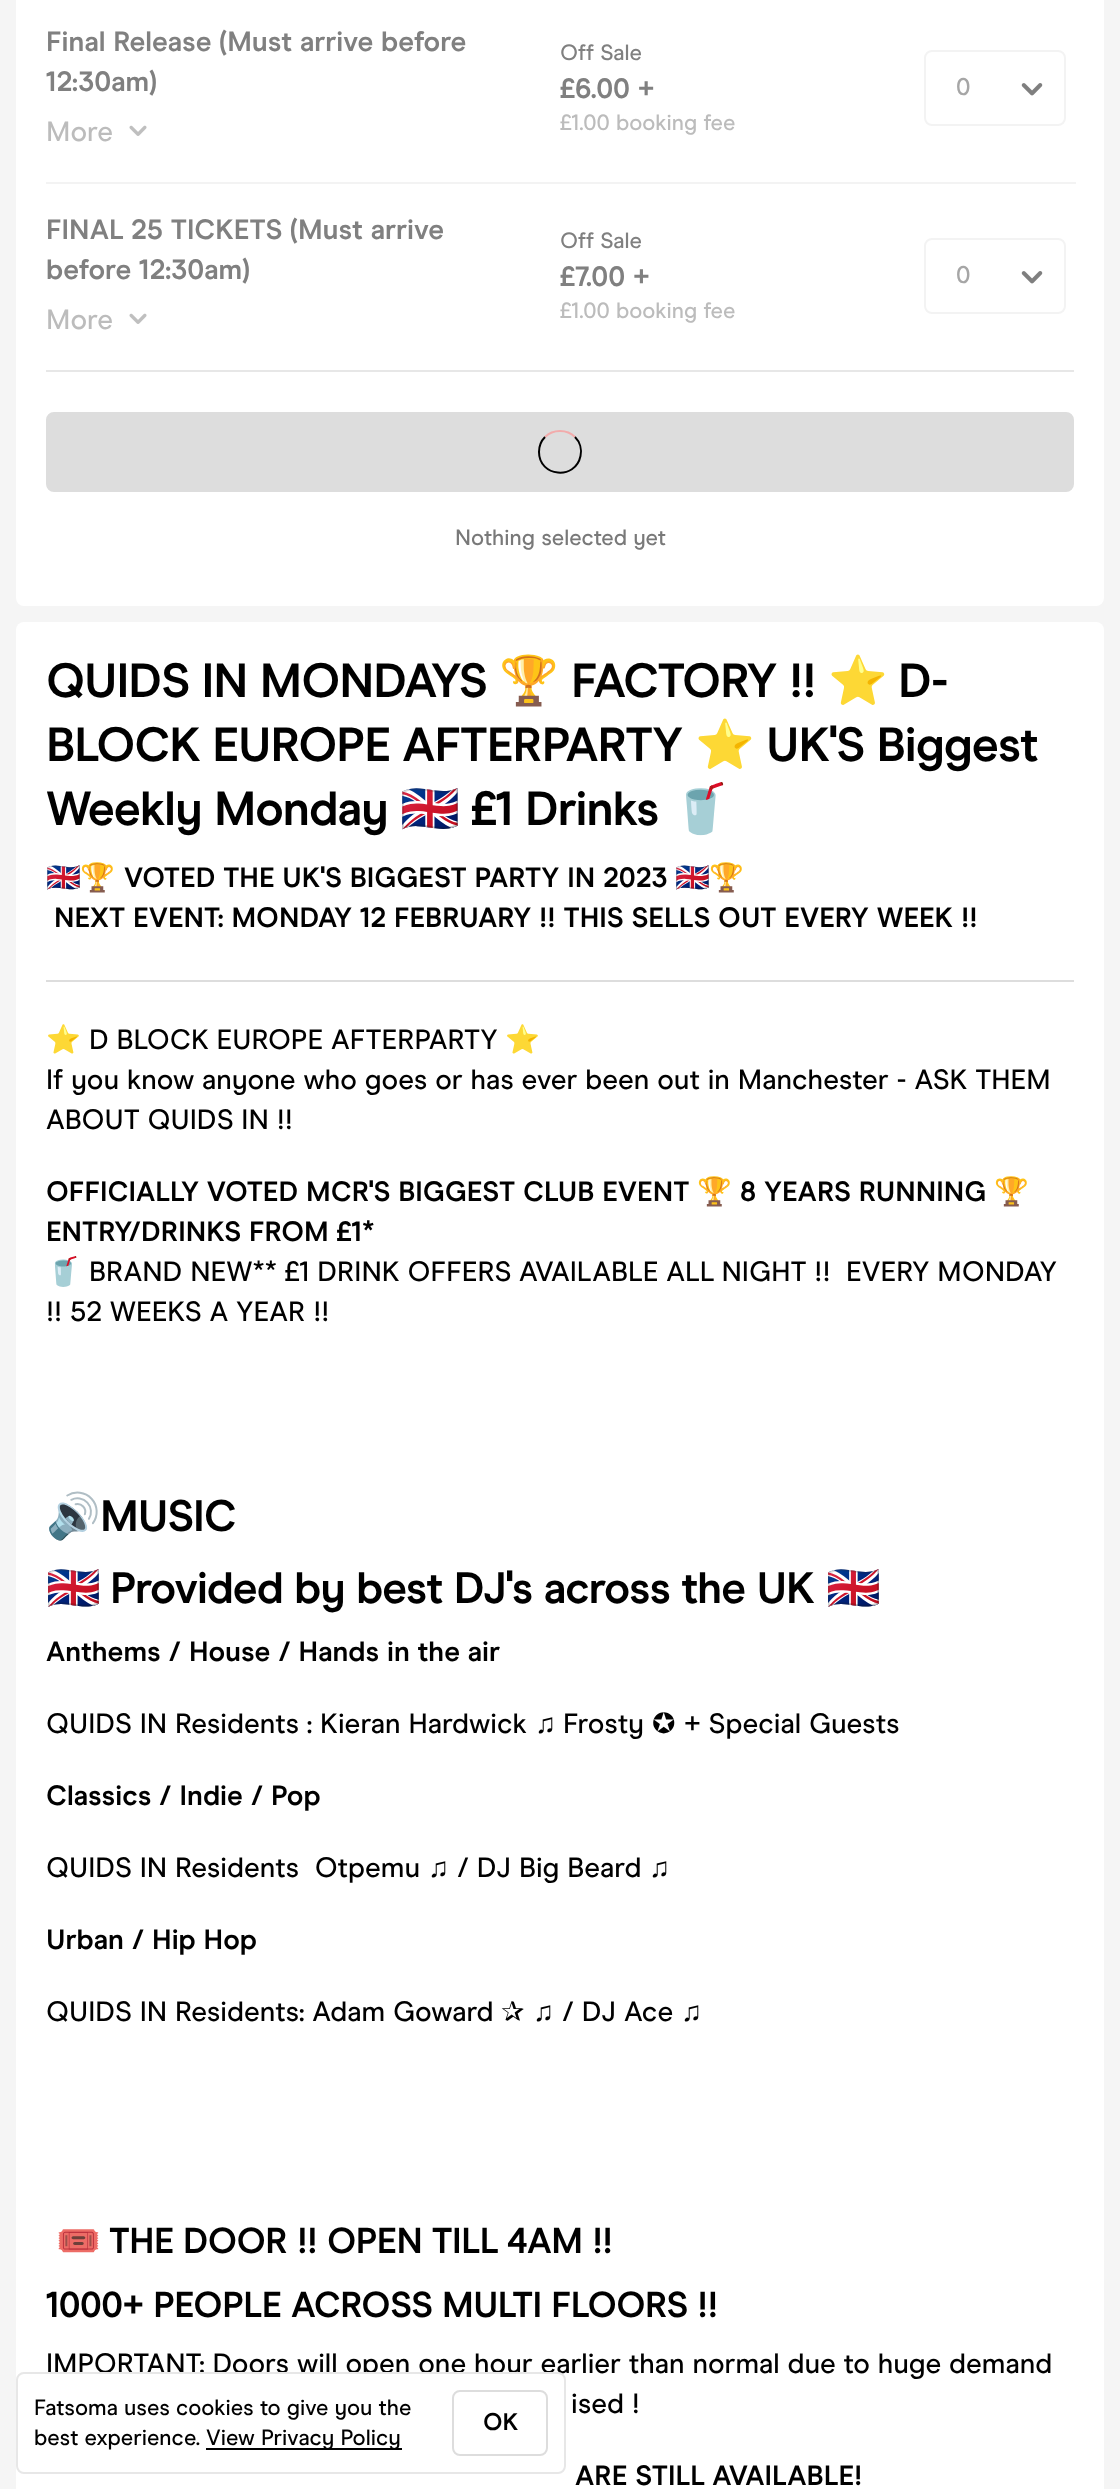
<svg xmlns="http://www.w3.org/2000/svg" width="1120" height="2489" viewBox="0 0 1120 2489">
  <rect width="100%" height="100%" fill="rgb(245,245,245)"/>
  <rect x="16" y="-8" width="1088" height="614" rx="8" fill="rgb(255,255,255)"/>
  <rect x="46" y="370" width="1028" height="2" fill="rgb(231,231,231)"/>
  <g font-family="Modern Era" font-size="28" font-weight="bold" fill="rgb(128,128,128)">
    <text>
      <tspan x="46" y="51">Final Release (Must arrive before</tspan>
      <tspan x="46" y="91">12:30am)</tspan>
    </text>
  </g>
  <text x="46" y="141" font-family="Modern Era" font-size="28" font-weight="500" fill="rgb(188,188,188)">More</text>
  <image x="129" y="125" width="18" height="11" href="pic1.png"/>
  <text x="560" y="60" font-family="Modern Era" font-size="22" font-weight="500" fill="rgb(128,128,128)">Off Sale</text>
  <text x="560" y="98" font-family="Modern Era" font-size="28" font-weight="bold" fill="rgb(128,128,128)">£6.00 +</text>
  <text x="560" y="130" font-family="Modern Era" font-size="22" font-weight="500" fill="rgb(188,188,188)">£1.00 booking fee</text>
  <rect x="925" y="51" width="140" height="74" rx="7" fill="none" stroke="rgb(243,243,243)" stroke-width="2"/>
  <text x="956" y="95" font-family="Modern Era" font-size="24" font-weight="500" fill="rgb(166,166,166)">0</text>
  <image x="1021" y="83" width="22" height="13" href="pic2.png"/>
  <rect x="46" y="182" width="1030" height="2" fill="rgb(243,243,243)"/>
  <g font-family="Modern Era" font-size="28" font-weight="bold" fill="rgb(128,128,128)">
    <text>
      <tspan x="46" y="239">FINAL 25 TICKETS (Must arrive</tspan>
      <tspan x="46" y="279">before 12:30am)</tspan>
    </text>
  </g>
  <text x="46" y="329" font-family="Modern Era" font-size="28" font-weight="500" fill="rgb(188,188,188)">More</text>
  <image x="129" y="313" width="18" height="11" href="pic1.png"/>
  <text x="560" y="248" font-family="Modern Era" font-size="22" font-weight="500" fill="rgb(128,128,128)">Off Sale</text>
  <text x="560" y="286" font-family="Modern Era" font-size="28" font-weight="bold" fill="rgb(128,128,128)">£7.00 +</text>
  <text x="560" y="318" font-family="Modern Era" font-size="22" font-weight="500" fill="rgb(188,188,188)">£1.00 booking fee</text>
  <rect x="925" y="239" width="140" height="74" rx="7" fill="none" stroke="rgb(243,243,243)" stroke-width="2"/>
  <text x="956" y="283" font-family="Modern Era" font-size="24" font-weight="500" fill="rgb(166,166,166)">0</text>
  <image x="1021" y="271" width="22" height="13" href="pic2.png"/>
  <rect x="47" y="413" width="1026" height="78" rx="7" fill="rgb(221,221,221)" stroke="rgb(221,221,221)" stroke-width="2"/>
  <path d="M545 437C553 429 567 429 575 437" fill="none" stroke="rgb(242,171,171)" stroke-width="2"/>
  <path d="M575 437C580 442 582 449.5 580.5 456C575.5 480.5 539 477 539 452C539 446.5 541 441 545 437" fill="none" stroke="rgb(0,0,0)" stroke-width="2"/>
  <text x="455" y="545" font-family="Modern Era" font-size="22" font-weight="500" fill="rgb(121,121,121)">Nothing selected yet</text>
  <rect x="16" y="622" width="1088" height="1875" rx="8" fill="rgb(255,255,255)"/>
  <text x="46" y="697" font-family="Modern Era" font-size="48" font-weight="bold" letter-spacing="-1" fill="rgb(0,0,0)">QUIDS IN MONDAYS</text>
  <text x="499" y="697" font-family="Noto Color Emoji" font-size="48" font-weight="bold" letter-spacing="-1" fill="rgb(0,0,0)">🏆</text>
  <text x="571" y="697" font-family="Modern Era" font-size="48" font-weight="bold" letter-spacing="-1" fill="rgb(0,0,0)">FACTORY !!</text>
  <text x="828" y="697" font-family="Noto Color Emoji" font-size="48" font-weight="bold" letter-spacing="-1" fill="rgb(0,0,0)">⭐️</text>
  <g font-family="Modern Era" font-size="48" font-weight="bold" letter-spacing="-1" fill="rgb(0,0,0)">
    <text x="898" y="697">D-</text>
    <text x="46" y="761">BLOCK EUROPE AFTERPARTY</text>
  </g>
  <text x="695" y="761" font-family="Noto Color Emoji" font-size="48" font-weight="bold" letter-spacing="-1" fill="rgb(0,0,0)">⭐️</text>
  <g font-family="Modern Era" font-size="48" font-weight="bold" letter-spacing="-1" fill="rgb(0,0,0)">
    <text x="766" y="761">UK'S Biggest</text>
    <text x="46" y="825">Weekly Monday</text>
  </g>
  <text x="400" y="825" font-family="Noto Color Emoji" font-size="48" font-weight="bold" letter-spacing="-1" fill="rgb(0,0,0)">🇬🇧</text>
  <text x="471" y="825" font-family="Modern Era" font-size="48" font-weight="bold" letter-spacing="-1" fill="rgb(0,0,0)">£1 Drinks</text>
  <text x="671" y="825" font-family="Noto Color Emoji" font-size="48" font-weight="bold" letter-spacing="-1" fill="rgb(0,0,0)">🥤</text>
  <text x="46" y="887" font-family="Noto Color Emoji" font-size="28" font-weight="bold" fill="rgb(0,0,0)">🇬🇧🏆</text>
  <text x="124" y="887" font-family="Modern Era" font-size="28" font-weight="bold" fill="rgb(0,0,0)">VOTED THE UK'S BIGGEST PARTY IN 2023</text>
  <text x="675" y="887" font-family="Noto Color Emoji" font-size="28" font-weight="bold" fill="rgb(0,0,0)">🇬🇧🏆</text>
  <text x="54" y="927" font-family="Modern Era" font-size="28" font-weight="bold" fill="rgb(0,0,0)">NEXT EVENT: MONDAY 12 FEBRUARY !! THIS SELLS OUT EVERY WEEK !!</text>
  <rect x="46" y="980" width="1028" height="2" fill="rgb(221,221,221)"/>
  <text x="46" y="1049" font-family="Noto Color Emoji" font-size="28" fill="rgb(0,0,0)">⭐️</text>
  <text x="89" y="1049" font-family="Modern Era" font-size="28" font-weight="500" fill="rgb(0,0,0)">D BLOCK EUROPE AFTERPARTY</text>
  <text x="505" y="1049" font-family="Noto Color Emoji" font-size="28" fill="rgb(0,0,0)">⭐️</text>
  <g font-family="Modern Era" font-size="28" font-weight="500" fill="rgb(0,0,0)">
    <text>
      <tspan x="46" y="1089">If you know anyone who goes or has ever been out in Manchester - ASK THEM</tspan>
      <tspan x="46" y="1129">ABOUT QUIDS IN !!</tspan>
    </text>
  </g>
  <text x="46" y="1201" font-family="Modern Era" font-size="28" font-weight="bold" fill="rgb(0,0,0)">OFFICIALLY VOTED MCR'S BIGGEST CLUB EVENT</text>
  <text x="697" y="1201" font-family="Noto Color Emoji" font-size="28" font-weight="bold" fill="rgb(0,0,0)">🏆</text>
  <text x="740" y="1201" font-family="Modern Era" font-size="28" font-weight="bold" fill="rgb(0,0,0)">8 YEARS RUNNING</text>
  <text x="994" y="1201" font-family="Noto Color Emoji" font-size="28" font-weight="bold" fill="rgb(0,0,0)">🏆</text>
  <text x="46" y="1241" font-family="Modern Era" font-size="28" font-weight="bold" fill="rgb(0,0,0)">ENTRY/DRINKS FROM £1*</text>
  <text x="46" y="1281" font-family="Noto Color Emoji" font-size="28" fill="rgb(0,0,0)">🥤</text>
  <g font-family="Modern Era" font-size="28" font-weight="500" fill="rgb(0,0,0)">
    <text x="89" y="1281" xml:space="preserve">BRAND NEW** £1 DRINK OFFERS AVAILABLE ALL NIGHT !!  EVERY MONDAY</text>
    <text x="46" y="1321">!! 52 WEEKS A YEAR !!</text>
  </g>
  <text x="46" y="1531" font-family="Noto Color Emoji" font-size="44" font-weight="bold" letter-spacing="-1" fill="rgb(0,0,0)">🔊</text>
  <text x="100" y="1531" font-family="Modern Era" font-size="44" font-weight="bold" letter-spacing="-1" fill="rgb(0,0,0)">MUSIC</text>
  <text x="46" y="1603" font-family="Noto Color Emoji" font-size="44" font-weight="bold" letter-spacing="-1" fill="rgb(0,0,0)">🇬🇧</text>
  <text x="110" y="1603" word-spacing="0.25" font-family="Modern Era" font-size="44" font-weight="bold" letter-spacing="-1" fill="rgb(0,0,0)">Provided by best DJ's across the UK</text>
  <text x="826" y="1603" font-family="Noto Color Emoji" font-size="44" font-weight="bold" letter-spacing="-1" fill="rgb(0,0,0)">🇬🇧</text>
  <text x="46" y="1661" font-family="Modern Era" font-size="28" font-weight="bold" fill="rgb(0,0,0)">Anthems / House / Hands in the air</text>
  <text x="46" y="1733" font-family="Modern Era" font-size="28" font-weight="500" fill="rgb(0,0,0)">QUIDS IN Residents : Kieran Hardwick</text>
  <text x="535" y="1733" font-family="Liberation Sans" font-size="28" fill="rgb(0,0,0)">♫</text>
  <text x="563" y="1733" font-family="Modern Era" font-size="28" font-weight="500" fill="rgb(0,0,0)">Frosty</text>
  <text x="652" y="1733" font-family="DejaVu Sans" font-size="28" fill="rgb(0,0,0)">✪</text>
  <text x="684" y="1733" font-family="Modern Era" font-size="28" font-weight="500" fill="rgb(0,0,0)">+ Special Guests</text>
  <text x="46" y="1805" font-family="Modern Era" font-size="28" font-weight="bold" fill="rgb(0,0,0)">Classics / Indie / Pop</text>
  <text x="46" y="1877" font-family="Modern Era" font-size="28" font-weight="500" fill="rgb(0,0,0)" xml:space="preserve">QUIDS IN Residents  Otpemu</text>
  <text x="428" y="1877" font-family="Liberation Sans" font-size="28" fill="rgb(0,0,0)">♫</text>
  <text x="457" y="1877" font-family="Modern Era" font-size="28" font-weight="500" fill="rgb(0,0,0)">/ DJ Big Beard</text>
  <text x="649" y="1877" font-family="Liberation Sans" font-size="28" fill="rgb(0,0,0)">♫</text>
  <text x="46" y="1949" font-family="Modern Era" font-size="28" font-weight="bold" fill="rgb(0,0,0)">Urban / Hip Hop</text>
  <text x="46" y="2021" font-family="Modern Era" font-size="28" font-weight="500" fill="rgb(0,0,0)">QUIDS IN Residents: Adam Goward</text>
  <text x="501" y="2021" font-family="DejaVu Sans" font-size="28" fill="rgb(0,0,0)">✰</text>
  <text x="533" y="2021" font-family="Liberation Sans" font-size="28" fill="rgb(0,0,0)">♫</text>
  <text x="562" y="2021" font-family="Modern Era" font-size="28" font-weight="500" fill="rgb(0,0,0)">/ DJ Ace</text>
  <text x="681" y="2021" font-family="Liberation Sans" font-size="28" fill="rgb(0,0,0)">♫</text>
  <text x="56" y="2253" font-family="Noto Color Emoji" font-size="36" font-weight="bold" letter-spacing="-0.5" fill="rgb(0,0,0)">🎟️</text>
  <g font-family="Modern Era" font-size="36" font-weight="bold" letter-spacing="-0.5" fill="rgb(0,0,0)">
    <text x="109" y="2253">THE DOOR !! OPEN TILL 4AM !!</text>
    <text x="46" y="2317">1000+ PEOPLE ACROSS MULTI FLOORS !!</text>
  </g>
  <g font-family="Modern Era" font-size="28" font-weight="500" fill="rgb(0,0,0)">
    <text x="46" y="2373">IMPORTANT: Doors will open one hour earlier than normal due to huge demand</text>
    <text x="571" y="2413">ised !</text>
  </g>
  <text x="575" y="2485" font-family="Modern Era" font-size="28" font-weight="bold" fill="rgb(0,0,0)">ARE STILL AVAILABLE!</text>
  <rect x="17" y="2373" width="548" height="100" rx="7" fill="rgb(255,255,255)" stroke="rgb(231,231,231)" stroke-width="2"/>
  <g font-family="Modern Era" font-size="22" font-weight="500" fill="rgb(0,0,0)">
    <text>
      <tspan x="34" y="2415">Fatsoma uses cookies to give you the</tspan>
      <tspan x="34" y="2445">best experience.</tspan>
    </text>
  </g>
  <rect x="206" y="2448" width="196" height="2" fill="rgb(0,0,0)"/>
  <text x="206" y="2445" font-family="Modern Era" font-size="22" font-weight="500" fill="rgb(0,0,0)">View Privacy Policy</text>
  <rect x="453" y="2391" width="94" height="64" rx="7" fill="none" stroke="rgb(221,221,221)" stroke-width="2"/>
  <text x="483" y="2430" font-family="Modern Era" font-size="24" font-weight="bold" fill="rgb(0,0,0)">OK</text>
</svg>
